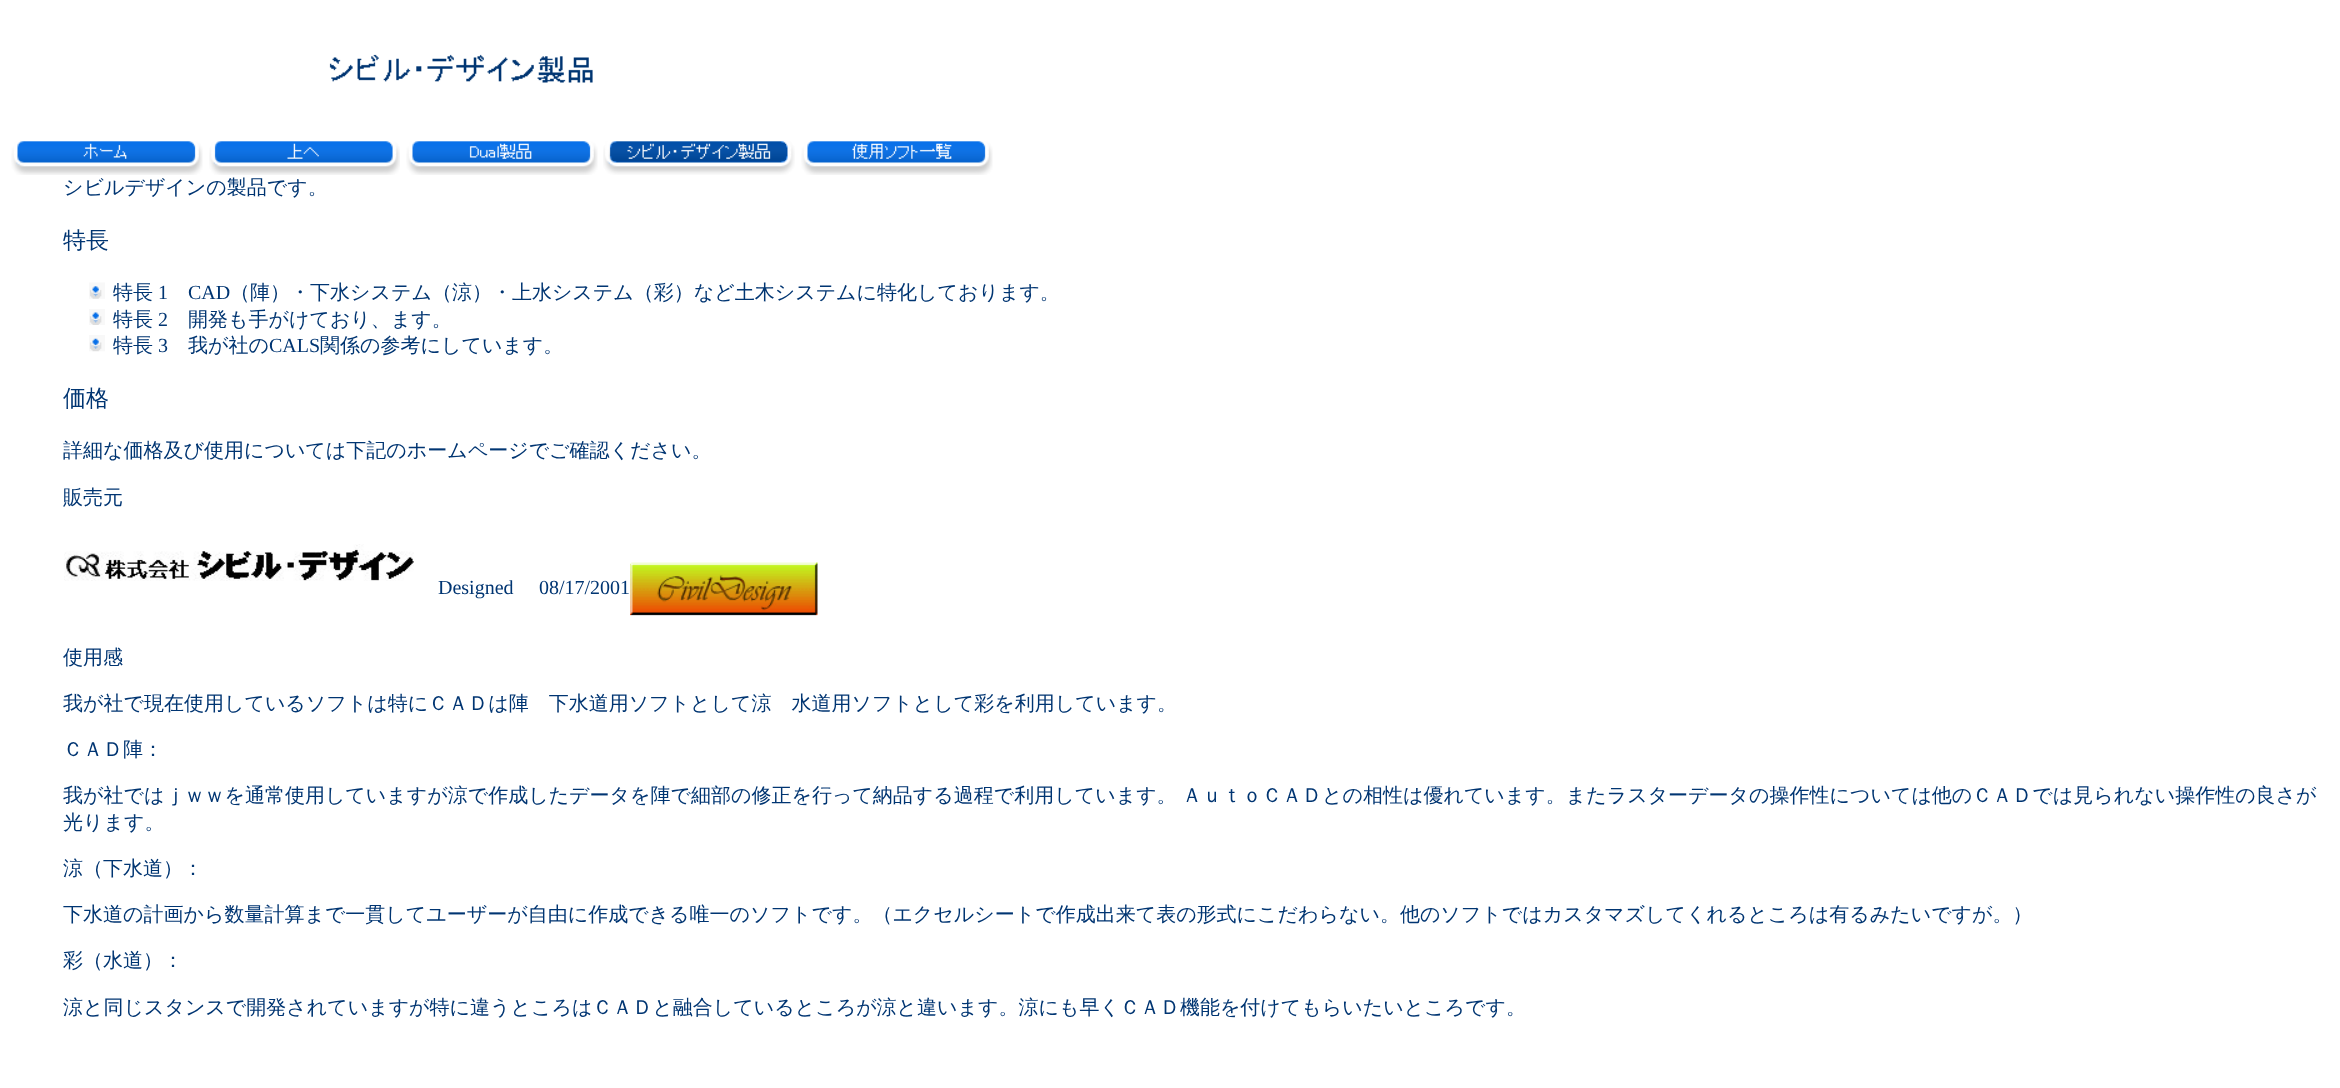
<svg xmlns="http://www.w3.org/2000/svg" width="2340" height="1088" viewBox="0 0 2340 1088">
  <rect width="100%" height="100%" fill="rgb(255,255,255)"/>
  <image x="329" y="54" width="264" height="29" href="pic1.png"/>
  <image x="11" y="141" width="192" height="34" href="pic2.png"/>
  <image x="209" y="141" width="191" height="34" href="pic3.png"/>
  <image x="406" y="141" width="192" height="34" href="pic4.png"/>
  <image x="603" y="141" width="192" height="34" href="pic5.png"/>
  <image x="801" y="141" width="192" height="34" href="pic6.png"/>
  <text x="63" y="194" font-family="WenQuanYi Zen Hei" font-size="20" font-weight="500" fill="rgb(0,53,114)">シビルデザインの製品です。</text>
  <text x="63" y="248" font-family="WenQuanYi Zen Hei" font-size="23" font-weight="500" fill="rgb(0,53,114)">特長</text>
  <image x="89" y="282" width="16" height="17" href="pic7.png"/>
  <text x="113" y="299" font-family="WenQuanYi Zen Hei" font-size="20" font-weight="500" fill="rgb(0,53,114)">特長</text>
  <text x="158" y="299" font-family="Liberation Serif" font-size="20" fill="rgb(0,53,114)" xml:space="preserve">1    CAD</text>
  <text x="230" y="299" font-family="WenQuanYi Zen Hei" font-size="20" font-weight="500" fill="rgb(0,53,114)">（陣）・下水システム（涼）・上水システム（彩）など土木システムに特化しております。</text>
  <image x="89" y="309" width="16" height="16" href="pic8.png"/>
  <text x="113" y="326" font-family="WenQuanYi Zen Hei" font-size="20" font-weight="500" fill="rgb(0,53,114)">特長</text>
  <text x="158" y="326" font-family="Liberation Serif" font-size="20" fill="rgb(0,53,114)">2</text>
  <text x="188" y="326" font-family="WenQuanYi Zen Hei" font-size="20" font-weight="500" fill="rgb(0,53,114)">開発も手がけており、ます。</text>
  <image x="89" y="335" width="16" height="17" href="pic9.png"/>
  <text x="113" y="352" font-family="WenQuanYi Zen Hei" font-size="20" font-weight="500" fill="rgb(0,53,114)">特長</text>
  <text x="158" y="352" font-family="Liberation Serif" font-size="20" fill="rgb(0,53,114)">3</text>
  <text x="188" y="352" font-family="WenQuanYi Zen Hei" font-size="20" font-weight="500" fill="rgb(0,53,114)">我が社の</text>
  <text x="269" y="352" font-family="Liberation Serif" font-size="20" fill="rgb(0,53,114)">CALS</text>
  <text x="320" y="352" font-family="WenQuanYi Zen Hei" font-size="20" font-weight="500" fill="rgb(0,53,114)">関係の参考にしています。</text>
  <text x="63" y="406" font-family="WenQuanYi Zen Hei" font-size="23" font-weight="500" fill="rgb(0,53,114)">価格</text>
  <g font-family="WenQuanYi Zen Hei" font-size="20" font-weight="500" fill="rgb(0,53,114)">
    <text x="63" y="457">詳細な価格及び使用については下記のホームページでご確認ください。</text>
    <text x="63" y="504">販売元</text>
  </g>
  <image x="64" y="544" width="350" height="37" href="pic10.png"/>
  <g font-family="Liberation Serif" font-size="20" fill="rgb(0,53,114)">
    <text x="438" y="594">Designed</text>
    <text x="539" y="594">08/17/2001</text>
  </g>
  <image x="630" y="562" width="188" height="54" href="pic11.png"/>
  <g font-family="WenQuanYi Zen Hei" font-size="20" font-weight="500" fill="rgb(0,53,114)">
    <text x="63" y="664">使用感</text>
    <text x="63" y="710">我が社で現在使用しているソフトは特にＣＡＤは陣　下水道用ソフトとして涼　水道用ソフトとして彩を利用しています。</text>
    <text x="63" y="756">ＣＡＤ陣：</text>
    <text x="63" y="802">我が社ではｊｗｗを通常使用していますが涼で作成したデータを陣で細部の修正を行って納品する過程で利用しています。</text>
    <text x="1182" y="802">ＡｕｔｏＣＡＤとの相性は優れています。またラスターデータの操作性については他のＣＡＤでは見られない操作性の良さが</text>
    <text x="63" y="829">光ります。</text>
    <text x="63" y="875">涼（下水道）：</text>
    <text x="63" y="921">下水道の計画から数量計算まで一貫してユーザーが自由に作成できる唯一のソフトです。（エクセルシートで作成出来て表の形式にこだわらない。他のソフトではカスタマズしてくれるところは有るみたいですが。）</text>
    <text x="63" y="967">彩（水道）：</text>
    <text x="63" y="1014">涼と同じスタンスで開発されていますが特に違うところはＣＡＤと融合しているところが涼と違います。涼にも早くＣＡＤ機能を付けてもらいたいところです。</text>
  </g>
</svg>
